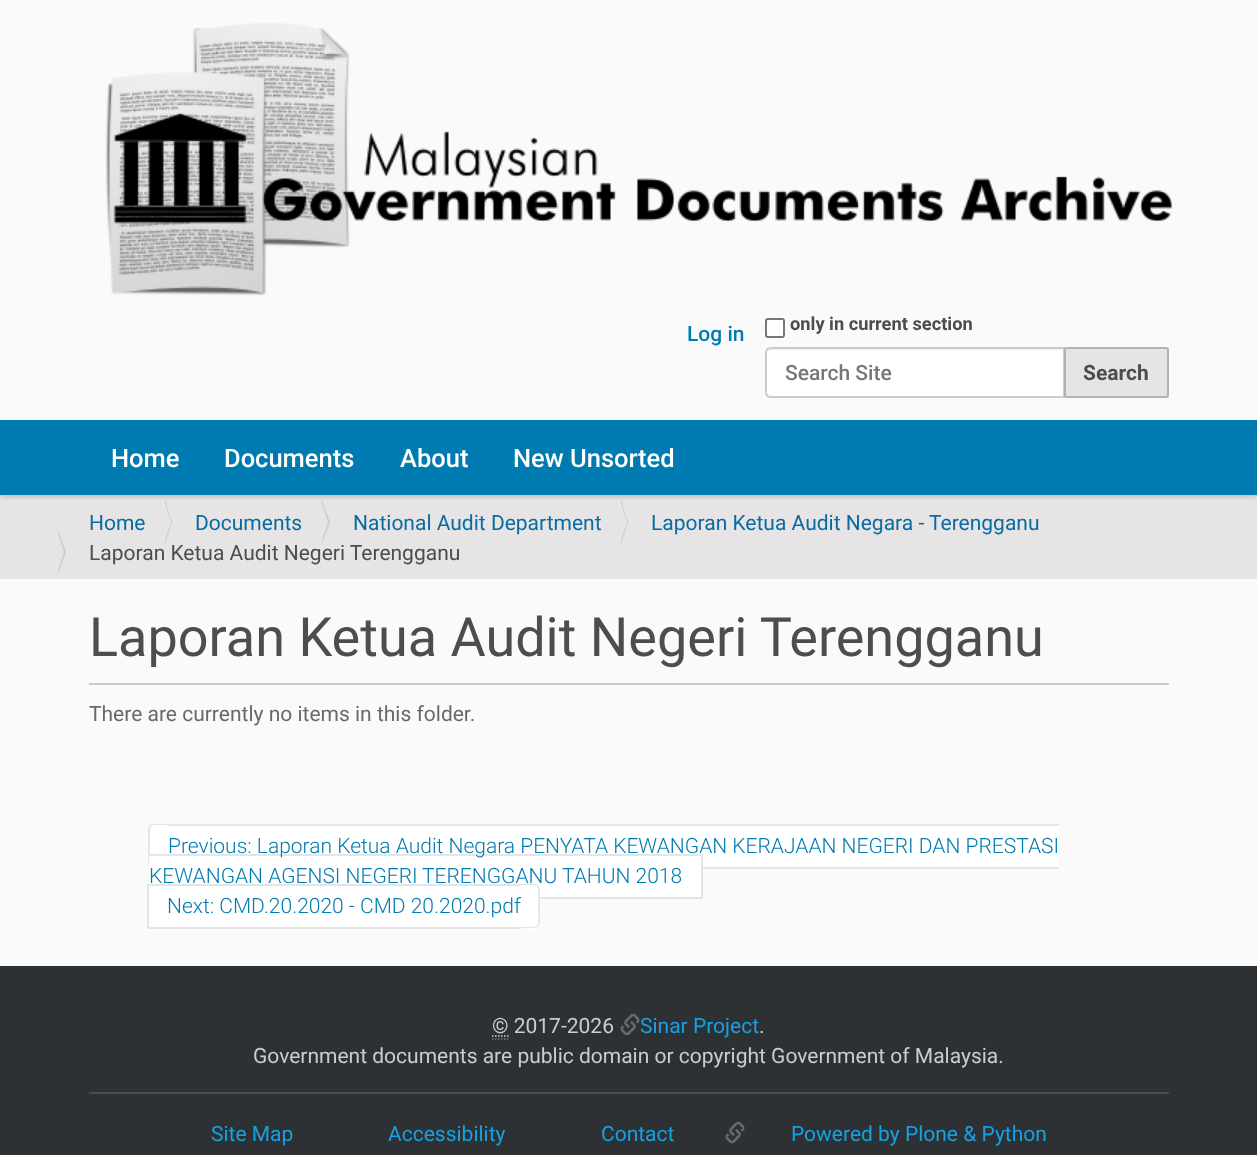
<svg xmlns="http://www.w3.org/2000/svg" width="1257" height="1155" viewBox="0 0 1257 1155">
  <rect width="100%" height="100%" fill="rgb(250,250,250)"/>
  <image x="105" y="22" width="1067" height="274" href="pic1.png"/>
  <text x="687" y="341" font-family="Roboto" font-size="21" font-weight="500" fill="rgb(0,123,177)">Log in</text>
  <rect x="766" y="319" width="18" height="18" rx="2" fill="rgb(255,255,255)" stroke="rgb(118,118,118)" stroke-width="2"/>
  <text x="790" y="330" font-family="Roboto" font-size="18.25" font-weight="bold" fill="rgb(77,77,77)">only in current section</text>
  <path d="M771 347H1065V398H771C767.5 398 765 395.5 765 392V353C765 349.5 767.5 347 771 347Z" fill="rgb(255,255,255)"/>
  <path d="M771 350H1064V348H772C770 348 768 350 767 352C768 351 770 350 771 350Z" fill="rgb(236,236,236)"/>
  <path d="M771 348H1064V397H771C768 397 766 395 766 392V353C766 350 768 348 771 348Z" fill="none" stroke="rgb(204,204,204)" stroke-width="2"/>
  <text x="785" y="380" font-family="Roboto" font-size="21" font-weight="500" fill="rgb(119,119,119)">Search Site</text>
  <rect x="1065" y="348" width="103" height="49" rx="2" fill="rgb(229,229,229)" stroke="rgb(178,178,178)" stroke-width="2"/>
  <text x="1083" y="380" font-family="Roboto" font-size="21" font-weight="bold" fill="rgb(77,77,77)">Search</text>
  <rect x="0" y="495" width="1257" height="84" fill="rgb(230,228,228)"/>
  <rect x="0" y="422" width="1257" height="75" fill="rgba(0,0,0,0.17)" filter="blur(2px)"/>
  <rect x="0" y="420" width="1257" height="75" fill="rgb(0,123,177)"/>
  <g font-family="Roboto" font-size="25.5" font-weight="500" fill="rgb(255,255,255)">
    <text x="111" y="467">Home</text>
    <text x="224" y="467">Documents</text>
    <text x="400" y="467">About</text>
    <text x="513" y="467">New Unsorted</text>
  </g>
  <text x="89" y="530" font-family="Roboto" font-size="21" fill="rgb(8,108,163)">Home</text>
  <path d="M165 544V500L172 522Z" fill="rgb(204,204,204)"/>
  <path d="M164 544V500L171 522Z" fill="rgb(230,228,228)"/>
  <text x="195" y="530" font-family="Roboto" font-size="21" fill="rgb(8,108,163)">Documents</text>
  <path d="M322 544V500L330 522Z" fill="rgb(204,204,204)"/>
  <path d="M321 544V500L328 522Z" fill="rgb(230,228,228)"/>
  <text x="353" y="530" font-family="Roboto" font-size="21" fill="rgb(8,108,163)">National Audit Department</text>
  <path d="M621 544V500L628 522Z" fill="rgb(204,204,204)"/>
  <path d="M620 544V500L627 522Z" fill="rgb(230,228,228)"/>
  <text x="651" y="530" font-family="Roboto" font-size="21" fill="rgb(8,108,163)">Laporan Ketua Audit Negara - Terengganu</text>
  <path d="M58 574V530L66 552Z" fill="rgb(204,204,204)"/>
  <path d="M57 574V530L64 552Z" fill="rgb(230,228,228)"/>
  <text x="89" y="560" font-family="Roboto" font-size="21" fill="rgb(77,77,77)">Laporan Ketua Audit Negeri Terengganu</text>
  <rect x="89" y="683" width="1080" height="2" fill="rgb(204,204,204)"/>
  <text x="89" y="656" font-family="Roboto" font-size="54" fill="rgb(77,77,77)">Laporan Ketua Audit Negeri Terengganu</text>
  <text x="89" y="721" font-family="Roboto" font-size="21" fill="rgb(105,105,105)">There are currently no items in this folder.</text>
  <rect x="168" y="826" width="891" height="41" fill="rgb(255,255,255)"/>
  <path d="M155 824H168V869H155C151.5 869 149 866.5 149 863V830C149 826.5 151.5 824 155 824Z" fill="rgb(255,255,255)"/>
  <path d="M154 824H168V868H154C151 868 148 866 148 862V830C148 826 151 824 154 824ZM154 825H168V867H154C152 867 150 865 150 862V830C150 827 152 825 154 825Z" fill="rgb(229,229,229)" fill-rule="evenodd"/>
  <rect x="149" y="854" width="553" height="2" fill="rgb(229,229,229)"/>
  <rect x="149" y="856" width="552" height="41" fill="rgb(255,255,255)"/>
  <rect x="701" y="854" width="2" height="45" fill="rgb(229,229,229)"/>
  <text x="168" y="853" font-family="Roboto" font-size="21" font-weight="300" fill="rgb(0,123,177)">Previous: Laporan Ketua Audit Negara PENYATA KEWANGAN KERAJAAN NEGERI DAN PRESTASI</text>
  <rect x="168" y="824" width="891" height="2" fill="rgb(229,229,229)"/>
  <g font-family="Roboto" font-size="21" font-weight="300" fill="rgb(0,123,177)">
    <text x="149" y="883">KEWANGAN AGENSI NEGERI</text>
    <text x="422" y="883">TERENGGANU TAHUN 2018</text>
  </g>
  <rect x="703" y="867" width="356" height="2" fill="rgb(229,229,229)"/>
  <rect x="540" y="897" width="162" height="2" fill="rgb(229,229,229)"/>
  <rect x="149" y="897" width="372" height="30" fill="rgb(255,255,255)"/>
  <rect x="147" y="884" width="374" height="2" fill="rgb(229,229,229)"/>
  <rect x="147" y="927" width="374" height="2" fill="rgb(229,229,229)"/>
  <path d="M521 884H534C537.5 884 540 886.5 540 890V923C540 926.5 537.5 929 534 929H521Z" fill="rgb(255,255,255)"/>
  <path d="M520 884C543 884 540 882 540 906C540 930 543 928 520 928ZM520 885C542 885 538 883 538 906C538 929 542 927 520 927Z" fill="rgb(229,229,229)" fill-rule="evenodd"/>
  <text x="167" y="913" font-family="Roboto" font-size="21" font-weight="300" fill="rgb(0,123,177)">Next: CMD.20.2020 - CMD 20.2020.pdf</text>
  <rect x="147" y="884" width="2" height="45" fill="rgb(229,229,229)"/>
  <rect x="0" y="966" width="1257" height="189" fill="rgb(46,49,51)"/>
  <rect x="89" y="1092" width="1080" height="2" fill="rgb(77,77,77)"/>
  <text x="492" y="1033" font-family="Roboto" font-size="21" fill="rgb(204,204,204)">© 2017-2026</text>
  <path d="M492 1039H508.5" fill="none" stroke="rgb(119,119,119)" stroke-width="1.5" stroke-dasharray="1.5 1.5"/>
  <path d="M492 1036H508.5" fill="none" stroke="rgb(204,204,204)" stroke-width="1.5" stroke-dasharray="1.5 1.5"/>
  <image x="620" y="1013" width="20" height="23" href="pic2.png"/>
  <text x="640" y="1033" font-family="Roboto" font-size="21" fill="rgb(22,161,227)">Sinar Project</text>
  <g font-family="Roboto" font-size="21" fill="rgb(204,204,204)">
    <text x="759" y="1033">.</text>
    <text x="253" y="1063">Government documents are public domain or copyright Government of Malaysia.</text>
  </g>
  <g font-family="Roboto" font-size="21" fill="rgb(22,161,227)">
    <text x="211" y="1141">Site Map</text>
    <text x="388" y="1141">Accessibility</text>
    <text x="601" y="1141">Contact</text>
  </g>
  <image x="725" y="1121" width="20" height="23" href="pic2.png"/>
  <text x="791" y="1141" font-family="Roboto" font-size="21" fill="rgb(22,161,227)">Powered by Plone &amp; Python</text>
</svg>
